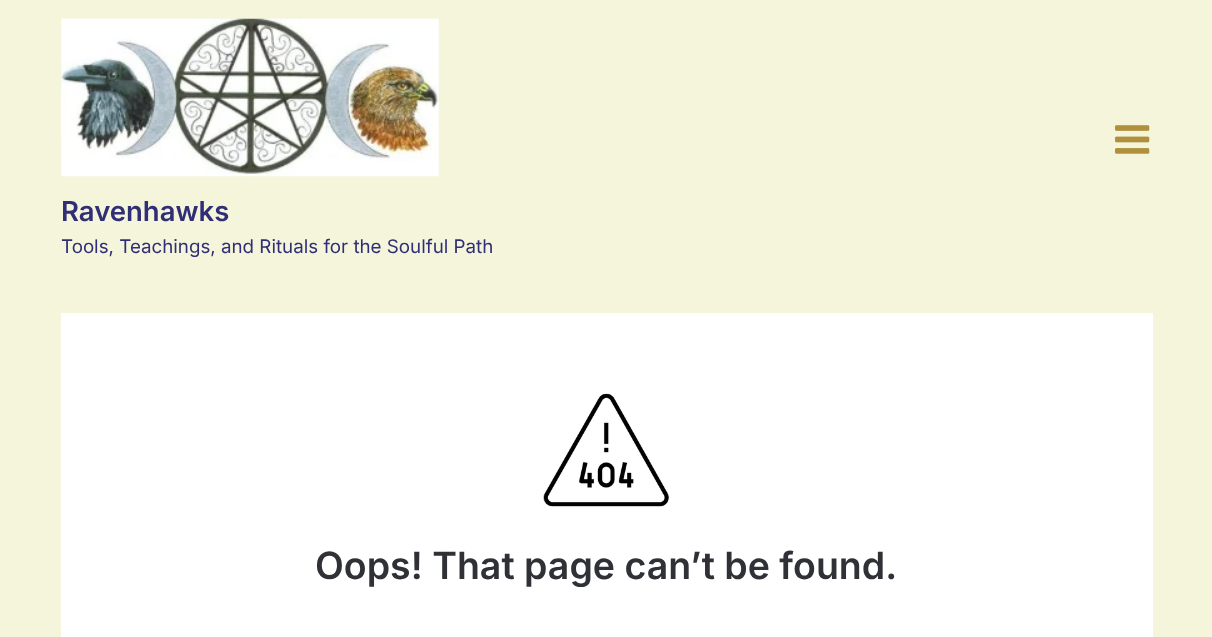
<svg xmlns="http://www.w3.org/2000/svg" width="1212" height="637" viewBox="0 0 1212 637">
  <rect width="100%" height="100%" fill="rgb(245,245,220)"/>
  <image x="1115" y="125" width="35" height="29" href="pic1.png"/>
  <image x="61" y="18" width="378" height="159" href="pic2.png"/>
  <text x="61" y="221" font-family="Inter" font-size="27.5" font-weight="600" fill="rgb(48,46,117)">Ravenhawks</text>
  <text x="61" y="253" font-family="Inter" font-size="18.75" fill="rgb(48,46,117)">Tools, Teachings, and Rituals for the Soulful Path</text>
  <rect x="61" y="313" width="1092" height="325" rx="1" fill="rgb(255,255,255)"/>
  <image x="543" y="393" width="126" height="114" href="pic3.png"/>
  <text x="315" y="579" font-family="Inter" font-size="37.5" font-weight="600" fill="rgb(47,49,54)">Oops! That page can’t be found.</text>
</svg>
